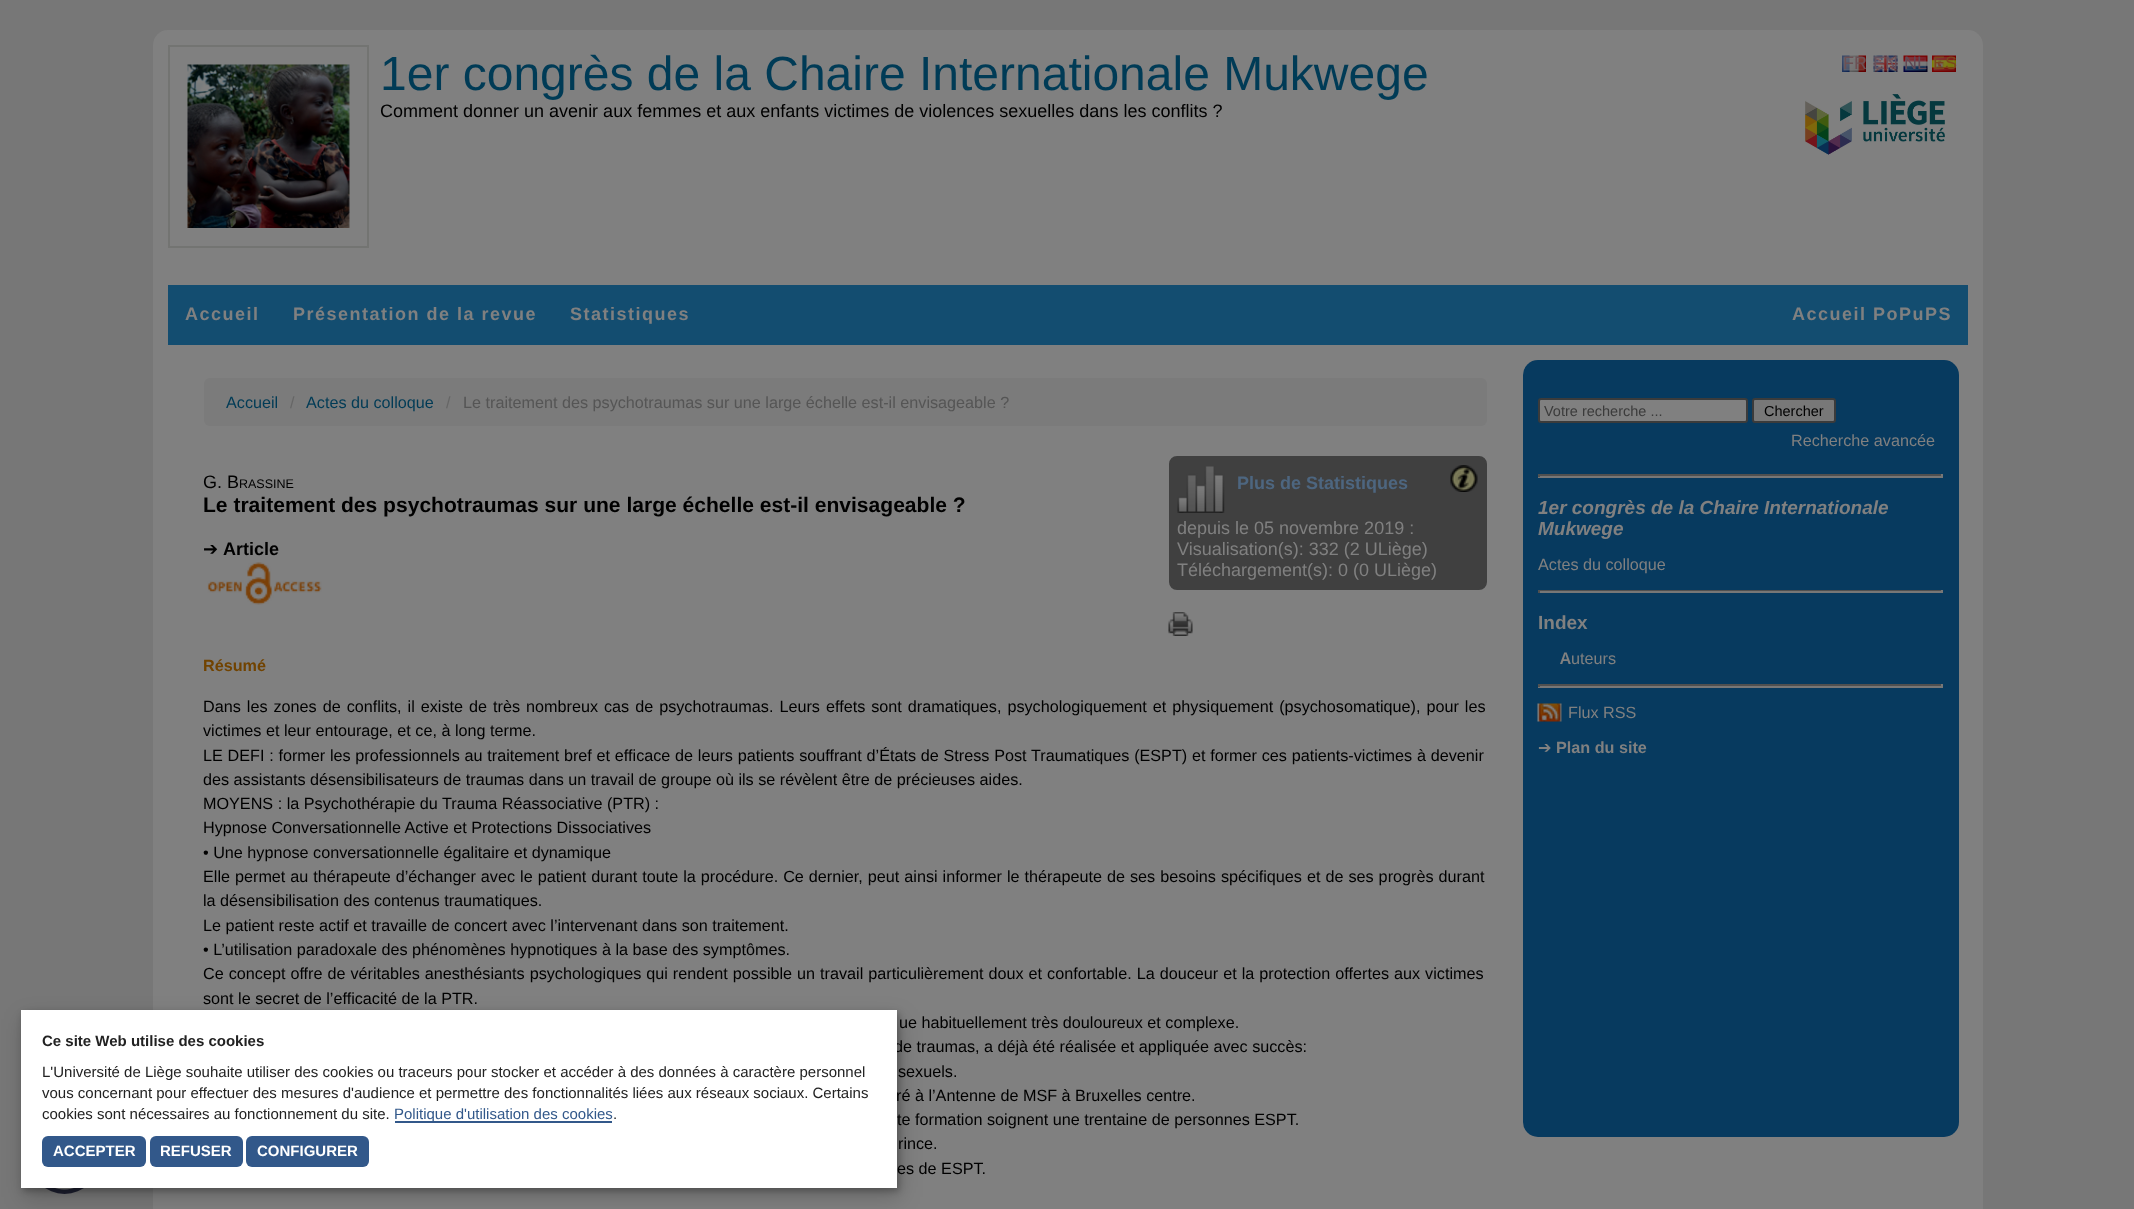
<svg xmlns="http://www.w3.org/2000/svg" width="2134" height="1209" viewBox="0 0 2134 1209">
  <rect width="100%" height="100%" fill="rgb(119,119,119)"/>
  <rect x="153" y="30" width="1830" height="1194" rx="15" fill="rgb(128,128,128)"/>
  <rect x="169" y="46" width="199" height="201" fill="none" stroke="rgb(115,116,114)" stroke-width="2"/>
  <image x="187" y="64" width="163" height="164" href="pic1.png"/>
  <text x="380" y="90" font-family="Liberation Sans" font-size="48" fill="rgb(0,59,86)">1er congrès de la Chaire Internationale Mukwege</text>
  <text x="380" y="117" font-family="Liberation Sans" font-size="18" fill="rgb(0,0,0)">Comment donner un avenir aux femmes et aux enfants victimes de violences sexuelles dans les conflits ?</text>
  <image x="1842" y="55" width="24" height="17" href="pic2.png"/>
  <image x="1873" y="55" width="25" height="17" href="pic3.png"/>
  <image x="1903" y="55" width="25" height="17" href="pic4.png"/>
  <image x="1932" y="55" width="24" height="17" href="pic5.png"/>
  <text x="1843" y="69" font-family="Liberation Sans" font-size="18" fill="rgb(108,81,85)">FR</text>
  <text x="1873" y="69" font-family="Liberation Sans" font-size="18" fill="rgb(101,83,94)">EN</text>
  <text x="1904" y="69" font-family="Liberation Sans" font-size="18" fill="rgb(97,74,86)">NL</text>
  <text x="1933" y="69" font-family="Liberation Sans" font-size="18" fill="rgb(123,71,30)">ES</text>
  <image x="1805" y="94" width="140" height="61" href="pic6.png"/>
  <rect x="168" y="285" width="1800" height="60" fill="rgb(19,77,112)"/>
  <g font-family="Liberation Sans" font-size="18" font-weight="bold" letter-spacing="1.5" fill="rgb(128,128,128)">
    <text x="185" y="320">Accueil</text>
    <text x="293" y="320">Présentation de la revue</text>
    <text x="570" y="320">Statistiques</text>
    <text x="1792" y="320">Accueil PoPuPS</text>
  </g>
  <rect x="204" y="378" width="1283" height="48" rx="6" fill="rgb(123,123,123)"/>
  <text x="226" y="408" font-family="Liberation Sans" font-size="16.2" fill="rgb(0,59,86)">Accueil</text>
  <text x="290" y="408" font-family="Liberation Sans" font-size="16.2" fill="rgb(102,102,102)">/</text>
  <text x="306" y="408" font-family="Liberation Sans" font-size="16.2" fill="rgb(0,59,86)">Actes du colloque</text>
  <text x="446" y="408" font-family="Liberation Sans" font-size="16.2" fill="rgb(102,102,102)">/</text>
  <text x="463" y="408" font-family="Liberation Sans" font-size="16.2" fill="rgb(85,85,85)">Le traitement des psychotraumas sur une large échelle est-il envisageable ?</text>
  <text x="203" y="488" font-family="Liberation Sans" font-size="18" fill="rgb(0,0,0)">G. B</text>
  <text x="239" y="488" font-family="Liberation Sans" font-size="12.5" fill="rgb(0,0,0)">RASSINE</text>
  <text x="203" y="512" font-family="Liberation Sans" font-size="21.05" font-weight="bold" fill="rgb(0,0,0)">Le traitement des psychotraumas sur une large échelle est-il envisageable ?</text>
  <text x="203" y="555" font-family="DejaVu Sans" font-size="18" fill="rgb(0,0,0)">➔</text>
  <text x="223" y="555" font-family="Liberation Sans" font-size="18" font-weight="bold" fill="rgb(0,0,0)">Article</text>
  <image x="207" y="562" width="115" height="43" href="pic7.png"/>
  <rect x="1170" y="457" width="316" height="132" rx="7" fill="rgb(64,64,64)" stroke="rgb(64,64,64)" stroke-width="2"/>
  <image x="1177" y="466" width="48" height="47" href="pic8.png"/>
  <text x="1237" y="489" font-family="Liberation Sans" font-size="18" font-weight="bold" fill="rgb(77,102,128)">Plus de Statistiques</text>
  <image x="1450" y="465" width="28" height="27" href="pic9.png"/>
  <g font-family="Liberation Sans" font-size="18" fill="rgb(128,128,128)">
    <text>
      <tspan x="1177" y="534">depuis le 05 novembre 2019 :</tspan>
      <tspan x="1177" y="555">Visualisation(s): 332 (2 ULiège)</tspan>
      <tspan x="1177" y="576">Téléchargement(s): 0 (0 ULiège)</tspan>
    </text>
  </g>
  <image x="1168" y="612" width="25" height="24" href="pic10.png"/>
  <text x="203" y="671" font-family="Liberation Sans" font-size="16.2" font-weight="bold" fill="rgb(113,67,0)">Résumé</text>
  <g font-family="Liberation Sans" font-size="16.2" fill="rgb(0,0,0)">
    <text>
      <tspan x="203" y="712" word-spacing="1.5">Dans les zones de conflits, il existe de très nombreux cas de psychotraumas. Leurs effets sont dramatiques, psychologiquement et physiquement (psychosomatique), pour les</tspan>
      <tspan x="203" y="736">victimes et leur entourage, et ce, à long terme.</tspan>
      <tspan x="203" y="761" word-spacing="0.25">LE DEFI : former les professionnels au traitement bref et efficace de leurs patients souffrant d’États de Stress Post Traumatiques (ESPT) et former ces patients-victimes à devenir</tspan>
      <tspan x="203" y="785">des assistants désensibilisateurs de traumas dans un travail de groupe où ils se révèlent être de précieuses aides.</tspan>
      <tspan x="203" y="809">MOYENS : la Psychothérapie du Trauma Réassociative (PTR) :</tspan>
      <tspan x="203" y="833">Hypnose Conversationnelle Active et Protections Dissociatives</tspan>
      <tspan x="203" y="858">• Une hypnose conversationnelle égalitaire et dynamique</tspan>
      <tspan x="203" y="882" word-spacing="0.5">Elle permet au thérapeute d’échanger avec le patient durant toute la procédure. Ce dernier, peut ainsi informer le thérapeute de ses besoins spécifiques et de ses progrès durant</tspan>
      <tspan x="203" y="906">la désensibilisation des contenus traumatiques.</tspan>
      <tspan x="203" y="931">Le patient reste actif et travaille de concert avec l’intervenant dans son traitement.</tspan>
      <tspan x="203" y="955">• L’utilisation paradoxale des phénomènes hypnotiques à la base des symptômes.</tspan>
      <tspan x="203" y="979" word-spacing="0.5">Ce concept offre de véritables anesthésiants psychologiques qui rendent possible un travail particulièrement doux et confortable. La douceur et la protection offertes aux victimes</tspan>
      <tspan x="203" y="1004">sont le secret de l’efficacité de la PTR.</tspan>
    </text>
    <text x="899" y="1028">ue habituellement très douloureux et complexe.</text>
    <text x="894" y="1052">de traumas, a déjà été réalisée et appliquée avec succès:</text>
    <text x="898" y="1077">sexuels.</text>
    <text x="896" y="1101">ré à l’Antenne de MSF à Bruxelles centre.</text>
    <text x="897" y="1125">te formation soignent une trentaine de personnes ESPT.</text>
    <text x="898" y="1149">rince.</text>
    <text x="897" y="1174">es de ESPT.</text>
  </g>
  <rect x="1523" y="360" width="436" height="777" rx="15" fill="rgb(7,58,95)"/>
  <rect x="1539" y="399" width="208" height="23" rx="2" fill="rgb(128,128,128)" stroke="rgb(59,59,59)" stroke-width="2"/>
  <text x="1544" y="416" font-family="Liberation Sans" font-size="14.5" fill="rgb(59,59,59)">Votre recherche ...</text>
  <rect x="1753" y="399" width="82" height="23" rx="2" fill="rgb(120,120,120)" stroke="rgb(59,59,59)" stroke-width="2"/>
  <text x="1764" y="416" font-family="Liberation Sans" font-size="14.5" fill="rgb(0,0,0)">Chercher</text>
  <text x="1791" y="446" font-family="Liberation Sans" font-size="16.2" fill="rgb(128,128,128)">Recherche avancée</text>
  <rect x="1538" y="474" width="405" height="2" fill="rgb(80,80,80)"/>
  <rect x="1941" y="474" width="2" height="3" fill="rgb(119,119,119)"/>
  <rect x="1538" y="476" width="405" height="2" fill="rgb(119,119,119)"/>
  <rect x="1538" y="474" width="2" height="3" fill="rgb(80,80,80)"/>
  <g font-family="Liberation Sans" font-size="19" font-weight="bold" font-style="italic" fill="rgb(128,128,128)">
    <text>
      <tspan x="1538" y="514">1er congrès de la Chaire Internationale</tspan>
      <tspan x="1538" y="535">Mukwege</tspan>
    </text>
  </g>
  <text x="1538" y="570" font-family="Liberation Sans" font-size="16.2" fill="rgb(128,128,128)">Actes du colloque</text>
  <rect x="1538" y="590" width="405" height="1" fill="rgb(80,80,80)"/>
  <rect x="1941" y="590" width="2" height="3" fill="rgb(119,119,119)"/>
  <rect x="1538" y="591" width="405" height="2" fill="rgb(119,119,119)"/>
  <rect x="1538" y="590" width="2" height="3" fill="rgb(80,80,80)"/>
  <text x="1538" y="629" font-family="Liberation Sans" font-size="19" font-weight="bold" fill="rgb(128,128,128)">Index</text>
  <text x="1560" y="664" font-family="Noto Sans" font-size="16.2" font-weight="600" fill="rgb(128,128,128)">A</text>
  <text x="1571" y="664" font-family="Liberation Sans" font-size="16.2" fill="rgb(128,128,128)">uteurs</text>
  <rect x="1538" y="684" width="405" height="2" fill="rgb(80,80,80)"/>
  <rect x="1941" y="684" width="2" height="3" fill="rgb(119,119,119)"/>
  <rect x="1538" y="686" width="405" height="2" fill="rgb(119,119,119)"/>
  <rect x="1538" y="684" width="2" height="3" fill="rgb(80,80,80)"/>
  <image x="1537" y="703" width="25" height="19" href="pic11.png"/>
  <text x="1568" y="718" font-family="Liberation Sans" font-size="16.2" fill="rgb(128,128,128)">Flux RSS</text>
  <text x="1538" y="753" font-family="DejaVu Sans" font-size="16.2" fill="rgb(128,128,128)">➔</text>
  <text x="1556" y="753" font-family="Liberation Sans" font-size="16.2" font-weight="bold" fill="rgb(128,128,128)">Plan du site</text>
  <circle cx="64.5" cy="1159.5" r="34.5" fill="rgb(30,32,49)"/>
  <image x="55" y="1188" width="19" height="2" href="pic12.png"/>
  <rect x="24" y="1019" width="876" height="178" fill="rgba(0,0,0,0.2)" filter="blur(11px)"/>
  <rect x="23" y="1013" width="876" height="178" fill="rgba(0,0,0,0.25)" filter="blur(3px)"/>
  <rect x="21" y="1010" width="876" height="178" fill="rgb(255,255,255)"/>
  <text x="42" y="1046" font-family="Liberation Sans" font-size="15" font-weight="bold" fill="rgb(34,34,34)">Ce site Web utilise des cookies</text>
  <g font-family="Liberation Sans" font-size="15" fill="rgb(34,34,34)">
    <text>
      <tspan x="42" y="1077">L'Université de Liège souhaite utiliser des cookies ou traceurs pour stocker et accéder à des données à caractère personnel</tspan>
      <tspan x="42" y="1098">vous concernant pour effectuer des mesures d'audience et permettre des fonctionnalités liées aux réseaux sociaux. Certains</tspan>
      <tspan x="42" y="1119">cookies sont nécessaires au fonctionnement du site.</tspan>
    </text>
  </g>
  <rect x="395" y="1121" width="217" height="2" fill="rgb(50,88,138)"/>
  <text x="394" y="1119" font-family="Liberation Sans" font-size="15" fill="rgb(50,88,138)">Politique d'utilisation des cookies</text>
  <text x="613" y="1119" font-family="Liberation Sans" font-size="15" fill="rgb(34,34,34)">.</text>
  <rect x="42" y="1136" width="104" height="31" rx="6" fill="rgb(50,88,138)"/>
  <text x="53" y="1156" font-family="Liberation Sans" font-size="15" font-weight="bold" fill="rgb(255,255,255)">ACCEPTER</text>
  <rect x="150" y="1136" width="93" height="31" rx="6" fill="rgb(50,88,138)"/>
  <text x="160" y="1156" font-family="Liberation Sans" font-size="15" font-weight="bold" fill="rgb(255,255,255)">REFUSER</text>
  <rect x="246" y="1136" width="123" height="31" rx="6" fill="rgb(50,88,138)"/>
  <text x="257" y="1156" font-family="Liberation Sans" font-size="15" font-weight="bold" fill="rgb(255,255,255)">CONFIGURER</text>
</svg>
